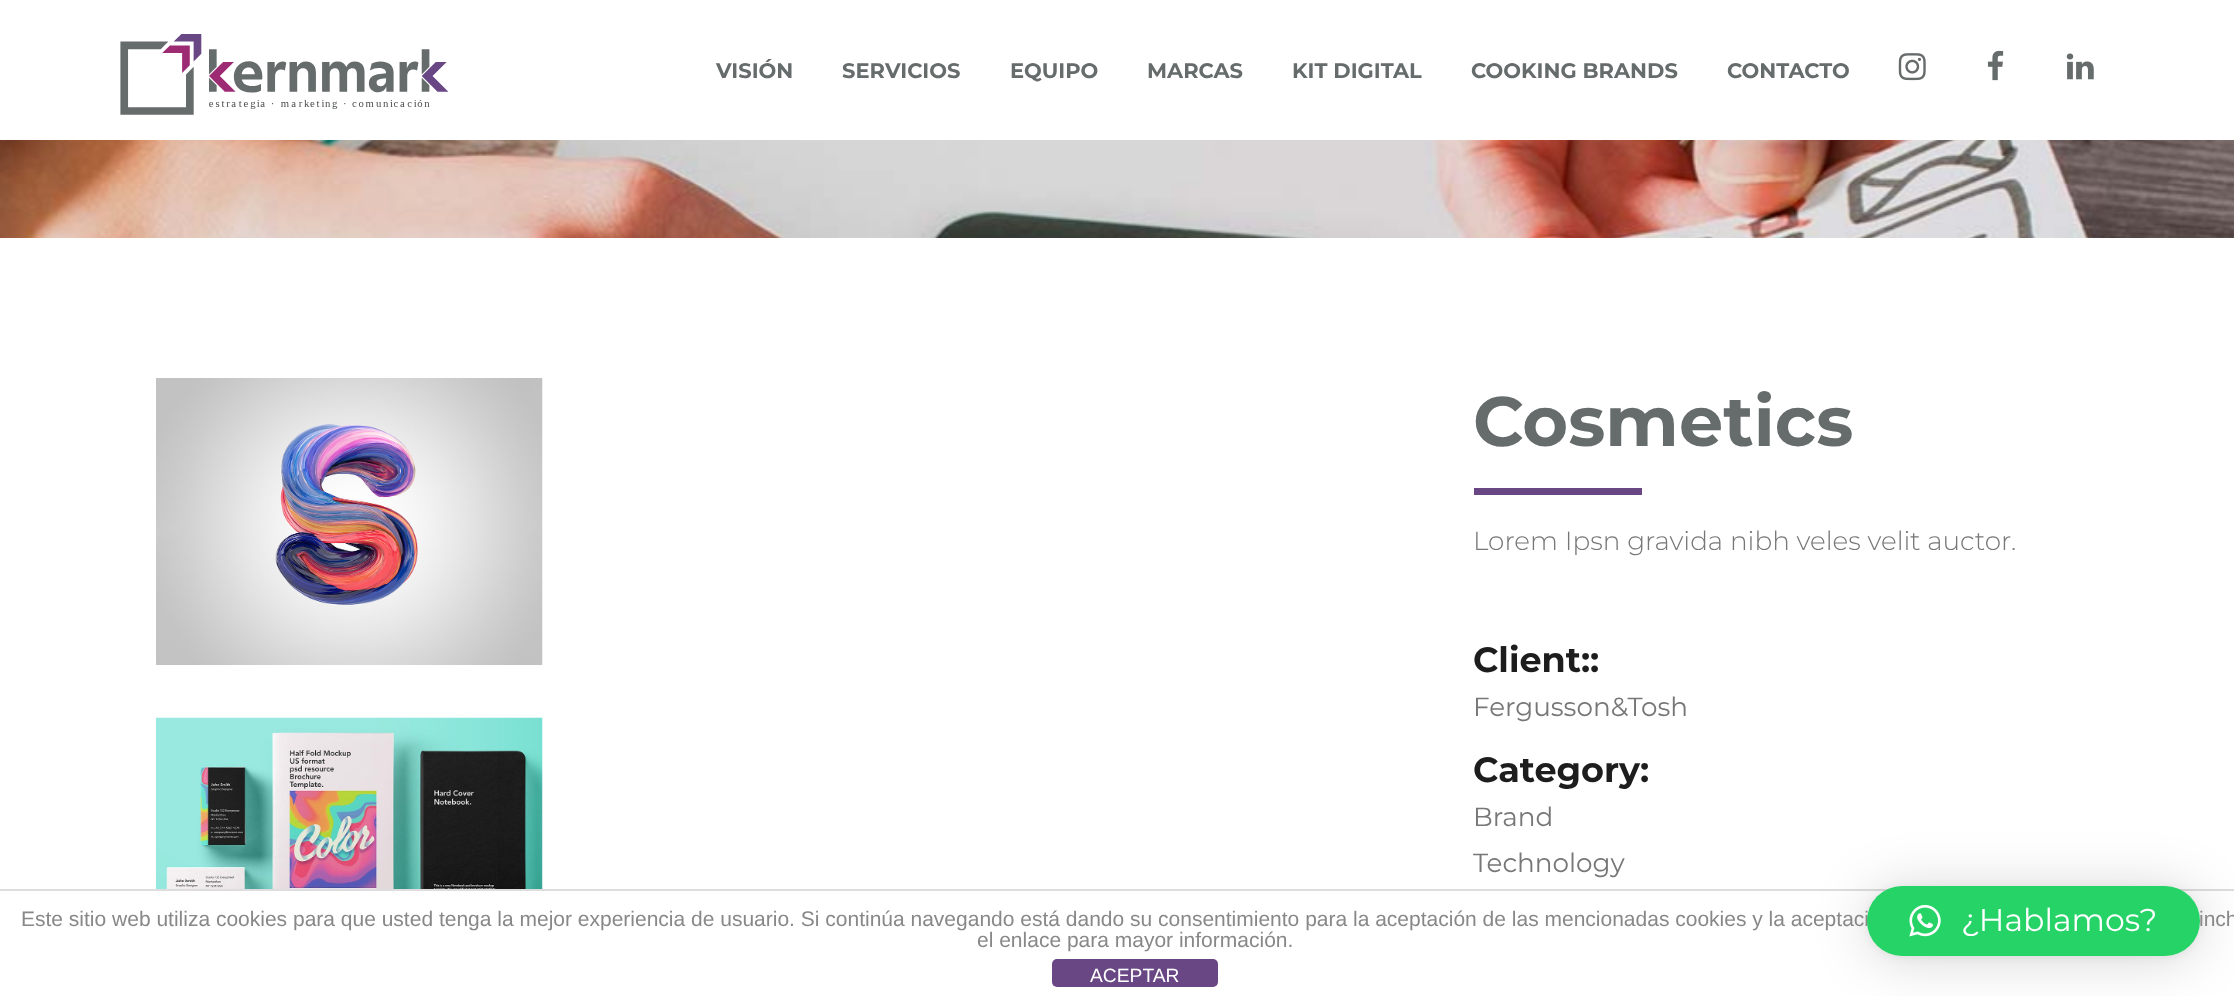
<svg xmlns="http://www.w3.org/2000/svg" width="2234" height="996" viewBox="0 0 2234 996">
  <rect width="100%" height="100%" fill="rgb(255,255,255)"/>
  <image x="120" y="34" width="329" height="81" href="pic1.png"/>
  <g font-family="Montserrat" font-size="21" font-weight="bold" fill="rgb(102,107,107)">
    <text x="716" y="78">VISIÓN</text>
    <text x="842" y="78">SERVICIOS</text>
    <text x="1010" y="78">EQUIPO</text>
    <text x="1147" y="78">MARCAS</text>
    <text x="1292" y="78">KIT DIGITAL</text>
    <text x="1471" y="78">COOKING BRANDS</text>
    <text x="1727" y="78">CONTACTO</text>
  </g>
  <image x="1898" y="53" width="28" height="28" href="pic2.png"/>
  <image x="1987" y="50" width="17" height="31" href="pic3.png"/>
  <image x="2066" y="53" width="28" height="27" href="pic4.png"/>
  <image x="0" y="140" width="2234" height="98" href="pic5.png"/>
  <image x="156" y="378" width="387" height="287" href="pic6.png"/>
  <image x="155" y="717" width="388" height="172" href="pic7.png"/>
  <text x="1473" y="446" font-family="Montserrat" font-size="70" font-weight="bold" fill="rgb(102,107,107)">Cosmetics</text>
  <rect x="1474" y="488" width="168" height="7" fill="rgb(104,71,132)"/>
  <text x="1473" y="550" font-family="Montserrat" font-size="26.25" font-weight="300" fill="rgb(119,119,119)">Lorem Ipsn gravida nibh veles velit auctor.</text>
  <text x="1473" y="672" font-family="Montserrat" font-size="35" font-weight="bold" fill="rgb(29,29,29)">Client::</text>
  <text x="1473" y="716" font-family="Montserrat" font-size="26.25" fill="rgb(119,119,119)">Fergusson&amp;Tosh</text>
  <text x="1473" y="782" font-family="Montserrat" font-size="35" font-weight="bold" fill="rgb(29,29,29)">Category:</text>
  <g font-family="Montserrat" font-size="26.25" fill="rgb(119,119,119)">
    <text>
      <tspan x="1473" y="826">Brand</tspan>
      <tspan x="1473" y="872">Technology</tspan>
    </text>
  </g>
  <rect x="0" y="889" width="2234" height="2" fill="rgb(221,221,221)"/>
  <rect x="1867" y="889" width="333" height="70" rx="35" fill="rgba(0,0,0,0.16)" filter="blur(28px)"/>
  <rect x="1867" y="887" width="333" height="70" rx="35" fill="rgba(0,0,0,0.06)" filter="blur(5px)"/>
  <text x="21" y="926" font-family="Liberation Sans" font-size="21" fill="rgb(136,136,136)">Este sitio web utiliza cookies para que usted tenga la mejor experiencia de usuario. Si continúa navegando está dando su consentimiento para la aceptación de las mencionadas cookies y la aceptaci</text>
  <rect x="1867" y="886" width="333" height="70" rx="35" fill="rgb(37,211,102)"/>
  <image x="1909" y="905" width="32" height="32" href="pic8.png"/>
  <text x="1961" y="931" font-family="Montserrat" font-size="31.5" fill="rgb(255,255,255)">¿Hablamos?</text>
  <g font-family="Liberation Sans" font-size="21" fill="rgb(136,136,136)">
    <text x="2199" y="926">inch</text>
    <text x="977" y="947">el enlace para mayor información.</text>
  </g>
  <rect x="1052" y="959" width="166" height="28" rx="5" fill="rgb(104,71,132)"/>
  <text x="1090" y="982" font-family="Liberation Sans" font-size="19.25" fill="rgb(255,255,255)">ACEPTAR</text>
</svg>
